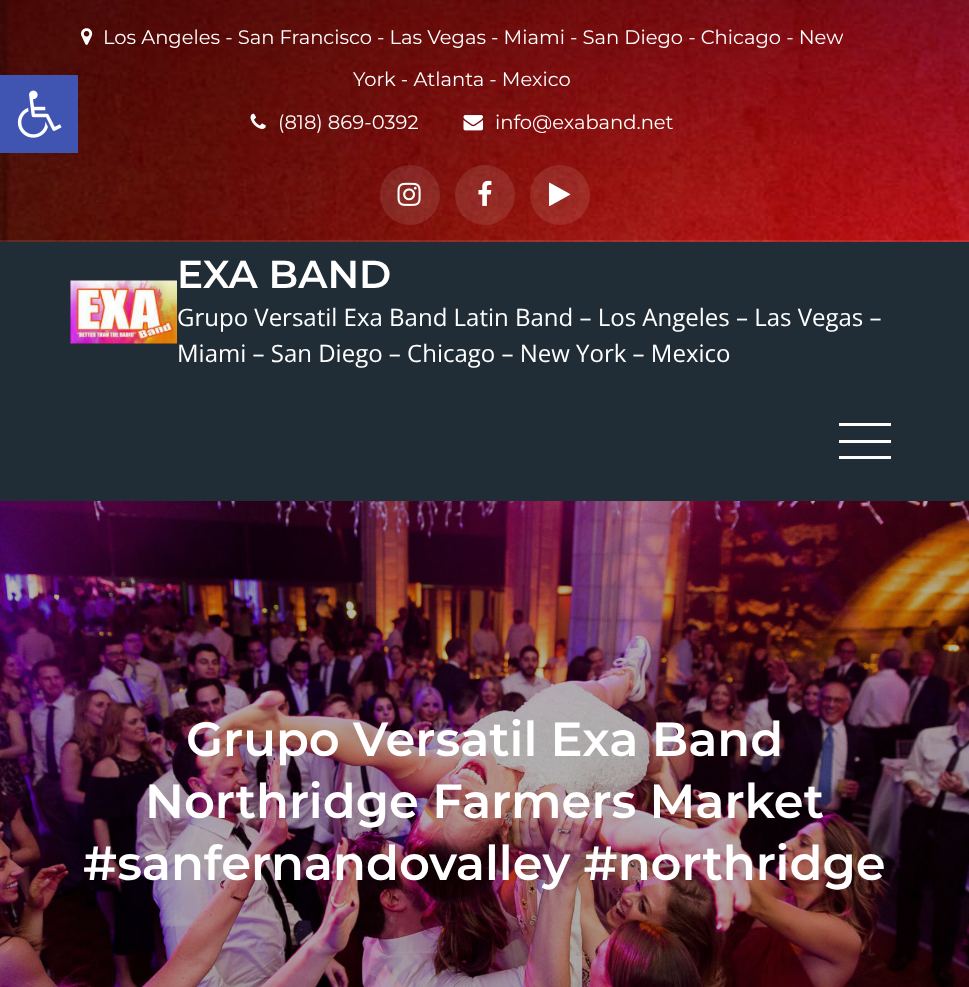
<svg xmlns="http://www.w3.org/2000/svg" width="969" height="987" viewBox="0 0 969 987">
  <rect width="100%" height="100%" fill="rgb(255,255,255)"/>
  <image x="0" y="0" width="969" height="242" href="pic1.png"/>
  <rect x="0" y="75" width="78" height="78" fill="rgb(64,84,178)"/>
  <image x="17" y="90" width="45" height="48" href="pic2.png"/>
  <rect x="0" y="240" width="969" height="2" fill="rgba(255,255,255,0.1)"/>
  <image x="81" y="28" width="12" height="17" href="pic3.png"/>
  <g font-family="Montserrat" font-size="19.5" fill="rgb(255,255,255)">
    <text x="103" y="44">Los Angeles - San Francisco - Las Vegas - Miami - San Diego - Chicago - New</text>
    <text x="353" y="86">York - Atlanta - Mexico</text>
  </g>
  <image x="250" y="113" width="16" height="16" href="pic4.png"/>
  <text x="278" y="129" font-family="Montserrat" font-size="19.5" fill="rgb(255,255,255)">(818) 869-0392</text>
  <image x="463" y="115" width="20" height="16" href="pic5.png"/>
  <text x="495" y="129" font-family="Montserrat" font-size="19.5" fill="rgb(255,255,255)">info@exaband.net</text>
  <circle cx="410" cy="195" r="30" fill="rgba(255,255,255,0.1)"/>
  <image x="397" y="182" width="24" height="24" href="pic6.png"/>
  <circle cx="485" cy="195" r="30" fill="rgba(255,255,255,0.1)"/>
  <image x="478" y="180" width="14" height="26" href="pic7.png"/>
  <circle cx="560" cy="195" r="30" fill="rgba(255,255,255,0.1)"/>
  <image x="549" y="182" width="22" height="24" href="pic8.png"/>
  <rect x="0" y="242" width="969" height="259" fill="rgb(32,44,54)"/>
  <image x="70" y="280" width="107" height="64" href="pic9.png"/>
  <text x="177" y="288" font-family="Montserrat" font-size="39" font-weight="600" fill="rgb(255,255,255)">EXA BAND</text>
  <g font-family="Open Sans" font-size="24" fill="rgb(255,255,255)">
    <text>
      <tspan x="177" y="326">Grupo Versatil Exa Band Latin Band – Los Angeles – Las Vegas –</tspan>
      <tspan x="177" y="362">Miami – San Diego – Chicago – New York – Mexico</tspan>
    </text>
  </g>
  <rect x="839" y="423" width="52" height="3" fill="rgb(255,255,255)"/>
  <rect x="839" y="440" width="52" height="3" fill="rgb(255,255,255)"/>
  <rect x="839" y="456" width="52" height="3" fill="rgb(255,255,255)"/>
  <image x="0" y="501" width="969" height="486" href="pic10.png"/>
  <g font-family="Montserrat" font-size="48" font-weight="600" fill="rgb(255,255,255)">
    <text x="186" y="756">Grupo Versatil Exa Band</text>
    <text x="145" y="818">Northridge Farmers Market</text>
    <text x="83" y="880">#sanfernandovalley #northridge</text>
  </g>
</svg>
